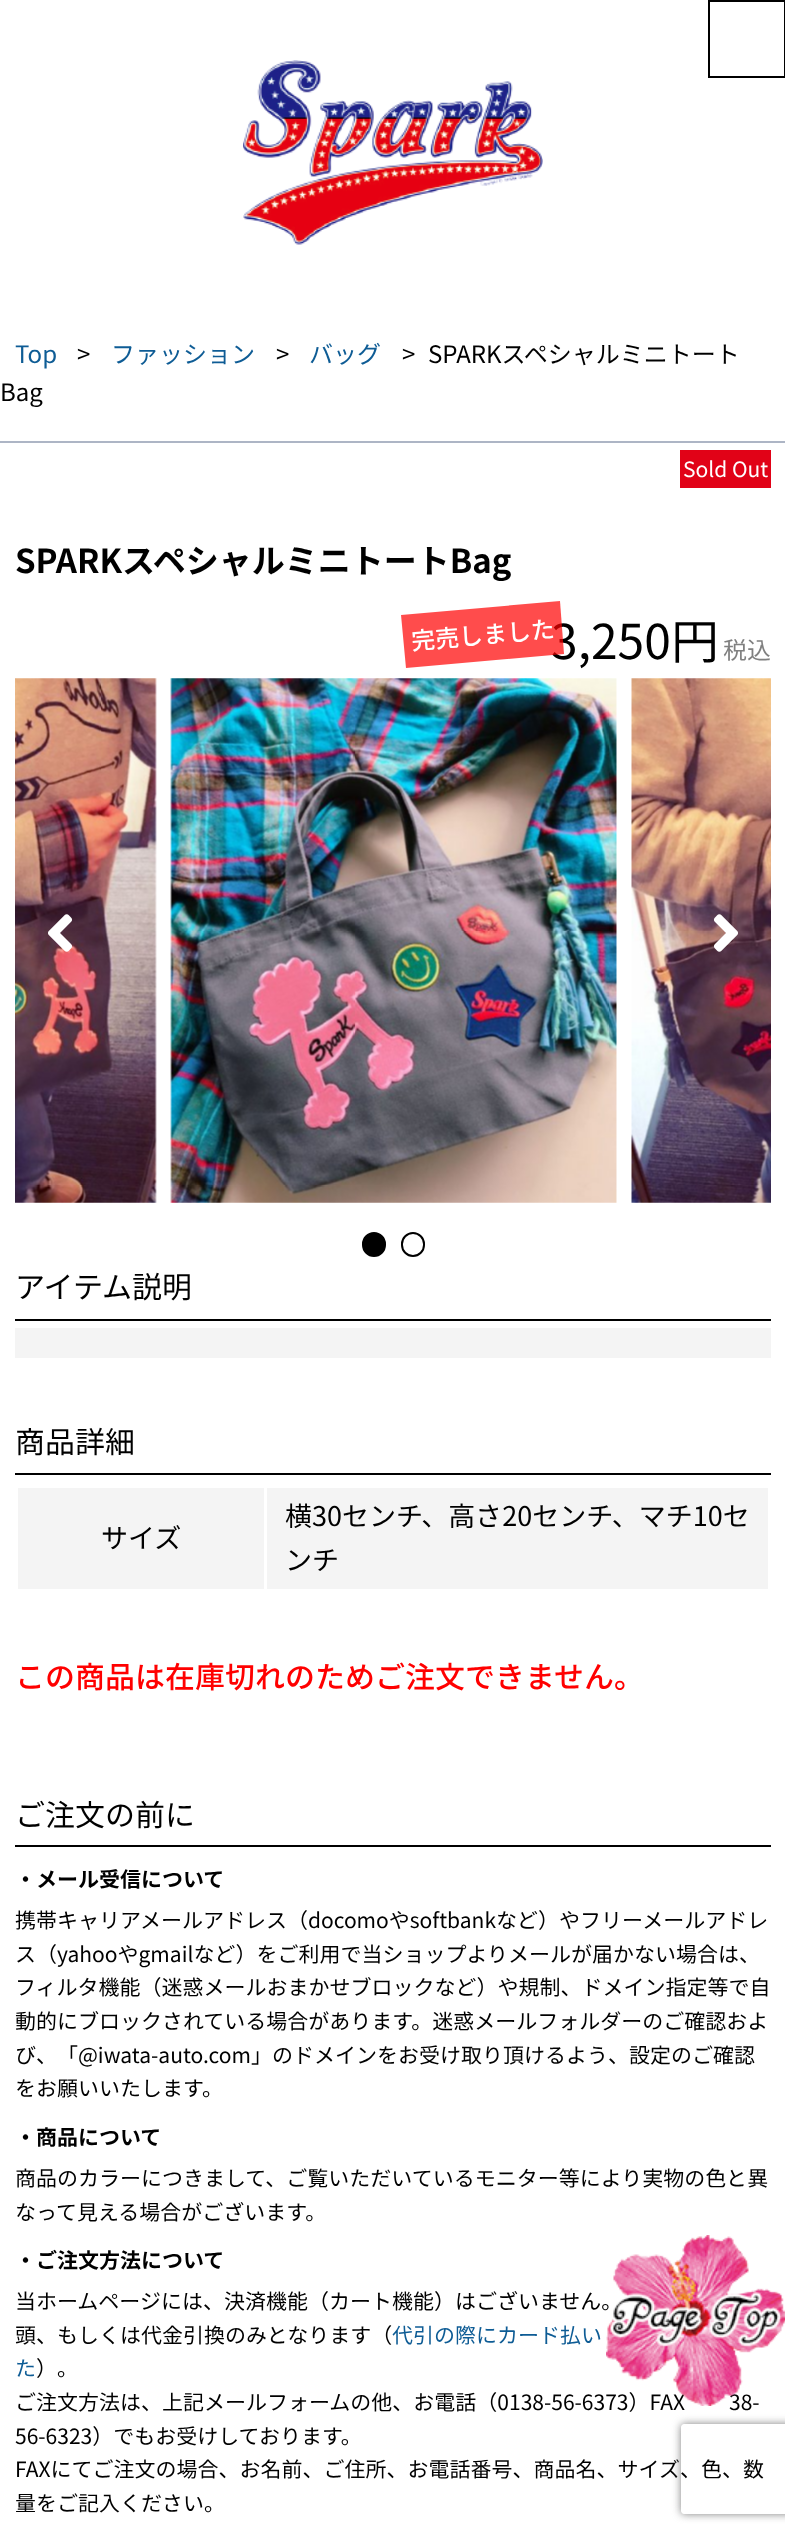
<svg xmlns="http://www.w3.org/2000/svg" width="785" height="2534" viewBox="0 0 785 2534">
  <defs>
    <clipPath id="clip1"><path d="M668 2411H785V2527H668ZM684 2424H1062C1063.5 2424 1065 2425.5 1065 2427V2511C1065 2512.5 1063.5 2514 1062 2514H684C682.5 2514 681 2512.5 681 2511V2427C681 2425.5 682.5 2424 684 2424Z" clip-rule="evenodd"/></clipPath>
  </defs>
  <rect width="100%" height="100%" fill="rgb(255,255,255)"/>
  <rect x="709" y="1" width="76" height="76" fill="none" stroke="rgb(0,0,0)" stroke-width="2"/>
  <image x="243" y="60" width="300" height="185" href="pic1.png"/>
  <rect x="0" y="441" width="785" height="2" fill="rgb(173,181,197)"/>
  <text x="15" y="363" font-family="Noto Sans JP" font-size="24" fill="rgb(14,92,149)">Top</text>
  <text x="77" y="363" font-family="Noto Sans JP" font-size="24" fill="rgb(0,0,0)">&gt;</text>
  <text x="111" y="363" font-family="Noto Sans JP" font-size="24" fill="rgb(14,92,149)">ファッション</text>
  <text x="276" y="363" font-family="Noto Sans JP" font-size="24" fill="rgb(0,0,0)">&gt;</text>
  <text x="309" y="363" font-family="Noto Sans JP" font-size="24" fill="rgb(14,92,149)">バッグ</text>
  <g font-family="Noto Sans JP" font-size="24" fill="rgb(0,0,0)">
    <text x="402" y="363">&gt;</text>
    <text x="428" y="363">SPARKスペシャルミニトート</text>
    <text x="0" y="401">Bag</text>
  </g>
  <rect x="680" y="450" width="91" height="38" fill="rgb(225,2,23)"/>
  <text x="683" y="477" font-family="Noto Sans JP" font-size="21" fill="rgb(255,255,255)">Sold Out</text>
  <text x="15" y="573" font-family="Noto Sans JP" font-size="33" font-weight="bold" fill="rgb(0,0,0)">SPARKスペシャルミニトートBag</text>
  <text x="551" y="659" font-family="Noto Sans JP" font-size="48" fill="rgb(0,0,0)">3,250円</text>
  <path d="M401 615L560 601L564 654L406 668Z" fill="rgba(255,0,0,0.7)"/>
  <text x="412" y="650" transform="rotate(-5 412 650)" font-family="Noto Sans JP" font-size="24" font-weight="500" fill="rgb(255,255,255)">完売しました</text>
  <text x="723" y="659" font-family="Noto Sans JP" font-size="24" fill="rgb(128,128,128)">税込</text>
  <image x="15" y="678" width="142" height="525" href="pic2.png"/>
  <image x="170" y="678" width="447" height="525" href="pic3.png"/>
  <image x="631" y="678" width="140" height="525" href="pic4.png"/>
  <image x="48" y="914" width="25" height="38" href="pic5.png"/>
  <image x="713" y="914" width="25" height="38" href="pic6.png"/>
  <rect x="363" y="1233" width="22" height="23" rx="11" fill="rgb(0,0,0)" stroke="rgb(0,0,0)" stroke-width="2"/>
  <rect x="402" y="1233" width="22" height="23" rx="11" fill="none" stroke="rgb(0,0,0)" stroke-width="2"/>
  <rect x="15" y="1319" width="756" height="2" fill="rgb(0,0,0)"/>
  <text x="15" y="1298" font-family="Noto Sans JP" font-size="30" fill="rgb(0,0,0)">アイテム説明</text>
  <rect x="15" y="1328" width="756" height="30" fill="rgb(244,244,244)"/>
  <rect x="15" y="1473" width="756" height="2" fill="rgb(0,0,0)"/>
  <text x="15" y="1453" font-family="Noto Sans JP" font-size="30" fill="rgb(0,0,0)">商品詳細</text>
  <rect x="18" y="1488" width="750" height="101" fill="rgb(244,244,244)"/>
  <rect x="264" y="1488" width="3" height="101" fill="rgb(255,255,255)"/>
  <g font-family="Noto Sans JP" font-size="27" fill="rgb(0,0,0)">
    <text x="101" y="1548">サイズ</text>
    <text>
      <tspan x="285" y="1526">横30センチ、高さ20センチ、マチ10セ</tspan>
      <tspan x="285" y="1570">ンチ</tspan>
    </text>
  </g>
  <text x="15" y="1688" font-family="Noto Sans JP" font-size="30" font-weight="500" fill="rgb(255,0,0)">この商品は在庫切れのためご注文できません。</text>
  <rect x="15" y="1845" width="756" height="2" fill="rgb(0,0,0)"/>
  <text x="15" y="1826" font-family="Noto Sans JP" font-size="30" fill="rgb(0,0,0)">ご注文の前に</text>
  <text x="15" y="1887" font-family="Noto Sans JP" font-size="21" font-weight="bold" fill="rgb(0,0,0)">・メール受信について</text>
  <g font-family="Noto Sans JP" font-size="21" fill="rgb(0,0,0)">
    <text>
      <tspan x="15" y="1928">携帯キャリアメールアドレス（docomoやsoftbankなど）やフリーメールアドレ</tspan>
      <tspan x="15" y="1962">ス（yahooやgmailなど）をご利用で当ショップよりメールが届かない場合は、</tspan>
      <tspan x="15" y="1995">フィルタ機能（迷惑メールおまかせブロックなど）や規制、ドメイン指定等で自</tspan>
      <tspan x="15" y="2029">動的にブロックされている場合があります。迷惑メールフォルダーのご確認およ</tspan>
      <tspan x="15" y="2063">び、「@iwata-auto.com」のドメインをお受け取り頂けるよう、設定のご確認</tspan>
      <tspan x="15" y="2096">をお願いいたします。</tspan>
    </text>
  </g>
  <text x="15" y="2145" font-family="Noto Sans JP" font-size="21" font-weight="bold" fill="rgb(0,0,0)">・商品について</text>
  <g font-family="Noto Sans JP" font-size="21" fill="rgb(0,0,0)">
    <text>
      <tspan x="15" y="2186">商品のカラーにつきまして、ご覧いただいているモニター等により実物の色と異</tspan>
      <tspan x="15" y="2220">なって見える場合がございます。</tspan>
    </text>
  </g>
  <text x="15" y="2268" font-family="Noto Sans JP" font-size="21" font-weight="bold" fill="rgb(0,0,0)">・ご注文方法について</text>
  <g font-family="Noto Sans JP" font-size="21" fill="rgb(0,0,0)">
    <text>
      <tspan x="15" y="2309">当ホームページには、決済機能（カート機能）はございません。</tspan>
      <tspan x="15" y="2343">頭、もしくは代金引換のみとなります（</tspan>
    </text>
  </g>
  <g font-family="Noto Sans JP" font-size="21" fill="rgb(14,92,149)">
    <text x="392" y="2343">代引の際にカード払い</text>
    <text x="15" y="2376">た</text>
  </g>
  <g font-family="Noto Sans JP" font-size="21" fill="rgb(0,0,0)">
    <text x="36" y="2376">）。</text>
    <text x="15" y="2410">ご注文方法は、上記メールフォームの他、お電話（0138-56-6373）FAX</text>
    <text x="729" y="2410">38-</text>
    <text>
      <tspan x="15" y="2444">56-6323）でもお受けしております。</tspan>
      <tspan x="15" y="2477">FAXにてご注文の場合、お名前、ご住所、お電話番号、商品名、サイズ、色、数</tspan>
      <tspan x="15" y="2511">量をご記入ください。</tspan>
    </text>
  </g>
  <image x="606" y="2235" width="179" height="171" href="pic7.png"/>
  <g clip-path="url(#clip1)">
    <rect x="681" y="2424" width="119" height="90" rx="3" fill="rgb(128,128,128)" filter="blur(4px)"/>
  </g>
</svg>
